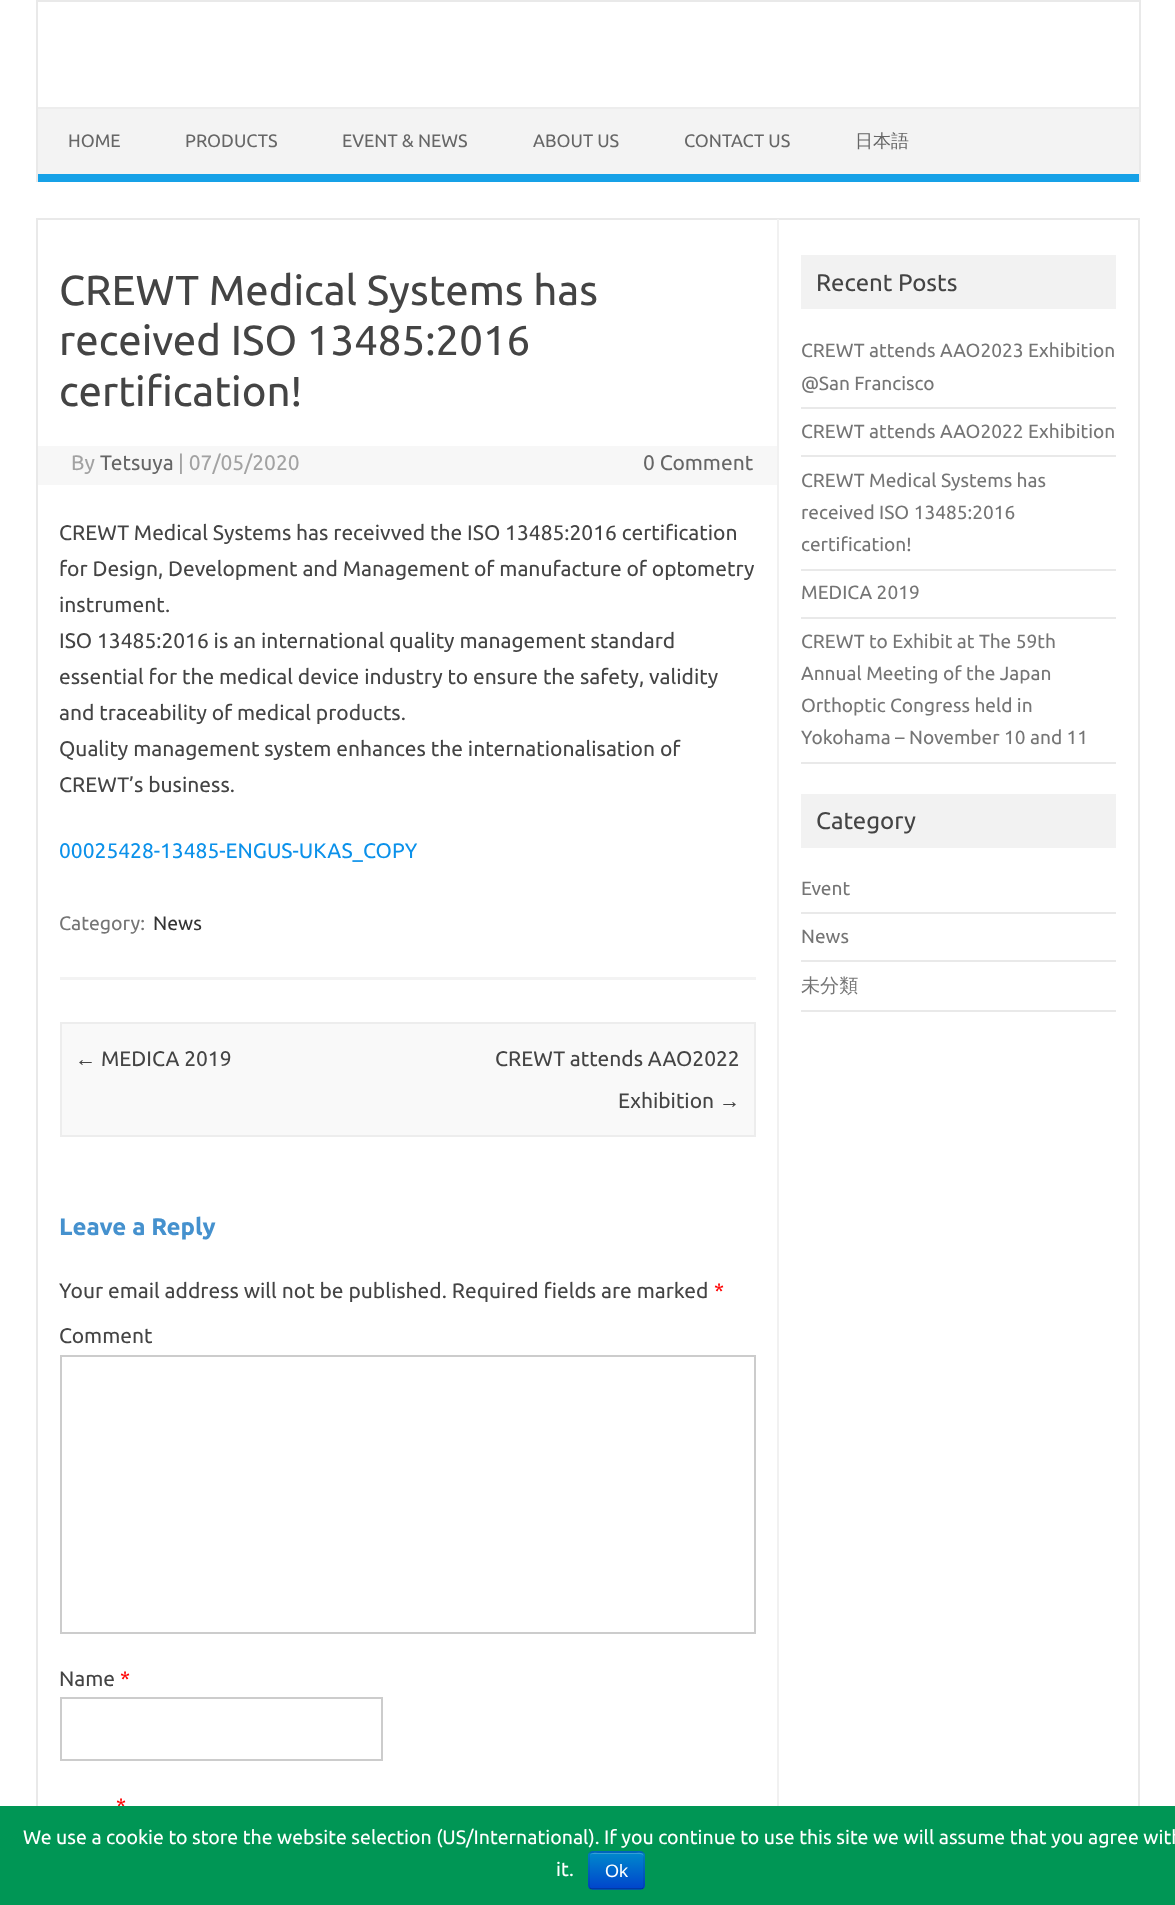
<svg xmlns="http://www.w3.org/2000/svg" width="1175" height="1905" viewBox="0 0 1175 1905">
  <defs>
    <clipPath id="clip1"><rect x="588" y="1851" width="57" height="39" rx="5"/></clipPath>
    <linearGradient id="g1" gradientUnits="userSpaceOnUse" x1="617" y1="1853" x2="617" y2="1889"><stop offset="0" stop-color="rgb(0,136,204)"/><stop offset="1" stop-color="rgb(0,68,204)"/></linearGradient>
  </defs>
  <rect width="100%" height="100%" fill="rgb(255,255,255)"/>
  <rect x="36" y="0" width="1104" height="2" fill="rgb(233,233,233)"/>
  <rect x="1139" y="0" width="2" height="182" fill="rgb(233,233,233)"/>
  <rect x="36" y="0" width="2" height="182" fill="rgb(233,233,233)"/>
  <rect x="38" y="109" width="1101" height="65" fill="rgb(243,243,243)"/>
  <rect x="38" y="107" width="1101" height="2" fill="rgb(237,237,237)"/>
  <rect x="38" y="174" width="1101" height="8" fill="rgb(22,161,231)"/>
  <g font-family="Ubuntu" font-size="18" fill="rgb(102,102,102)">
    <text x="68" y="147">HOME</text>
    <text x="185" y="147">PRODUCTS</text>
    <text x="342" y="147">EVENT &amp; NEWS</text>
    <text x="533" y="147">ABOUT US</text>
    <text x="684" y="147">CONTACT US</text>
  </g>
  <text x="855" y="147" font-family="WenQuanYi Zen Hei" font-size="18" font-weight="500" fill="rgb(102,102,102)">日本語</text>
  <rect x="37" y="219" width="1102" height="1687" fill="none" stroke="rgb(233,233,233)" stroke-width="2"/>
  <rect x="777" y="219" width="2" height="1587" fill="rgb(241,241,241)"/>
  <rect x="60" y="977" width="696" height="3" fill="rgb(243,243,243)"/>
  <g font-family="Ubuntu" font-size="42" fill="rgb(68,68,68)">
    <text>
      <tspan x="59" y="305">CREWT Medical Systems has</tspan>
      <tspan x="59" y="355">received ISO 13485:2016</tspan>
      <tspan x="59" y="406">certification!</tspan>
    </text>
  </g>
  <rect x="38" y="446" width="739" height="39" fill="rgb(247,247,247)"/>
  <text x="71" y="470" font-family="Ubuntu" font-size="21" fill="rgb(162,162,162)">By</text>
  <text x="100" y="470" font-family="Ubuntu" font-size="21" fill="rgb(102,102,102)">Tetsuya</text>
  <text x="178" y="470" font-family="Ubuntu" font-size="21" fill="rgb(162,162,162)">| 07/05/2020</text>
  <text x="643" y="470" font-family="Ubuntu" font-size="21" fill="rgb(102,102,102)">0 Comment</text>
  <g font-family="Ubuntu" font-size="21" fill="rgb(68,68,68)">
    <text>
      <tspan x="59" y="540">CREWT Medical Systems has receivved the ISO 13485:2016 certification</tspan>
      <tspan x="59" y="576">for Design, Development and Management of manufacture of optometry</tspan>
      <tspan x="59" y="612">instrument.</tspan>
      <tspan x="59" y="648">ISO 13485:2016 is an international quality management standard</tspan>
      <tspan x="59" y="684">essential for the medical device industry to ensure the safety, validity</tspan>
      <tspan x="59" y="720">and traceability of medical products.</tspan>
      <tspan x="59" y="756">Quality management system enhances the internationalisation of</tspan>
      <tspan x="59" y="792">CREWT’s business.</tspan>
    </text>
  </g>
  <text x="59" y="858" font-family="Ubuntu" font-size="21" fill="rgb(11,145,234)">00025428-13485-ENGUS-UKAS_COPY</text>
  <text x="59" y="930" font-family="Ubuntu" font-size="19.5" fill="rgb(117,117,117)">Category:</text>
  <text x="153" y="930" font-family="Ubuntu" font-size="19.5" fill="rgb(51,51,51)">News</text>
  <rect x="61" y="1023" width="694" height="113" fill="rgb(249,249,249)" stroke="rgb(237,237,237)" stroke-width="2"/>
  <text x="75" y="1066" font-family="Liberation Sans" font-size="21" fill="rgb(68,68,68)">←</text>
  <g font-family="Ubuntu" font-size="21" fill="rgb(68,68,68)">
    <text x="101" y="1066">MEDICA 2019</text>
    <text x="495" y="1066">CREWT attends AAO2022</text>
    <text x="618" y="1108">Exhibition</text>
  </g>
  <text x="719" y="1108" font-family="Liberation Sans" font-size="21" fill="rgb(68,68,68)">→</text>
  <text x="59" y="1235" font-family="Ubuntu" font-size="24" font-weight="bold" fill="rgb(69,145,206)">Leave a Reply</text>
  <text x="59" y="1298" font-family="Ubuntu" font-size="21" fill="rgb(68,68,68)">Your email address will not be published. Required fields are marked</text>
  <text x="714" y="1298" font-family="Ubuntu" font-size="21" fill="rgb(255,0,0)">*</text>
  <text x="59" y="1343" font-family="Ubuntu" font-size="21" fill="rgb(68,68,68)">Comment</text>
  <rect x="61" y="1356" width="694" height="277" fill="none" stroke="rgb(204,204,204)" stroke-width="2"/>
  <text x="59" y="1686" font-family="Ubuntu" font-size="21" fill="rgb(68,68,68)">Name</text>
  <text x="120" y="1686" font-family="Ubuntu" font-size="21" fill="rgb(255,0,0)">*</text>
  <rect x="61" y="1698" width="321" height="62" fill="none" stroke="rgb(204,204,204)" stroke-width="2"/>
  <text x="116" y="1813" font-family="Ubuntu" font-size="21" fill="rgb(255,0,0)">*</text>
  <rect x="801" y="255" width="315" height="54" fill="rgb(242,242,242)"/>
  <text x="816" y="291" font-family="Ubuntu" font-size="24" fill="rgb(68,68,68)">Recent Posts</text>
  <rect x="801" y="407" width="315" height="2" fill="rgb(233,233,233)"/>
  <g font-family="Ubuntu" font-size="19.1" fill="rgb(117,117,117)">
    <text>
      <tspan x="801" y="357">CREWT attends AAO2023 Exhibition</tspan>
      <tspan x="801" y="390">@San Francisco</tspan>
    </text>
  </g>
  <rect x="801" y="455" width="315" height="2" fill="rgb(233,233,233)"/>
  <text x="801" y="438" font-family="Ubuntu" font-size="19.1" fill="rgb(117,117,117)">CREWT attends AAO2022 Exhibition</text>
  <rect x="801" y="569" width="315" height="2" fill="rgb(233,233,233)"/>
  <g font-family="Ubuntu" font-size="19.1" fill="rgb(117,117,117)">
    <text>
      <tspan x="801" y="487">CREWT Medical Systems has</tspan>
      <tspan x="801" y="519">received ISO 13485:2016</tspan>
      <tspan x="801" y="551">certification!</tspan>
    </text>
  </g>
  <rect x="801" y="617" width="315" height="2" fill="rgb(233,233,233)"/>
  <text x="801" y="599" font-family="Ubuntu" font-size="19.1" fill="rgb(117,117,117)">MEDICA 2019</text>
  <rect x="801" y="762" width="315" height="2" fill="rgb(233,233,233)"/>
  <g font-family="Ubuntu" font-size="19.1" fill="rgb(117,117,117)">
    <text>
      <tspan x="801" y="648">CREWT to Exhibit at The 59th</tspan>
      <tspan x="801" y="680">Annual Meeting of the Japan</tspan>
      <tspan x="801" y="712">Orthoptic Congress held in</tspan>
      <tspan x="801" y="744">Yokohama – November 10 and 11</tspan>
    </text>
  </g>
  <rect x="801" y="794" width="315" height="54" fill="rgb(242,242,242)"/>
  <text x="816" y="829" font-family="Ubuntu" font-size="24" fill="rgb(68,68,68)">Category</text>
  <rect x="801" y="912" width="315" height="2" fill="rgb(233,233,233)"/>
  <text x="801" y="895" font-family="Ubuntu" font-size="19.1" fill="rgb(117,117,117)">Event</text>
  <rect x="801" y="960" width="315" height="2" fill="rgb(233,233,233)"/>
  <text x="801" y="943" font-family="Ubuntu" font-size="19.1" fill="rgb(117,117,117)">News</text>
  <rect x="801" y="1010" width="315" height="2" fill="rgb(233,233,233)"/>
  <text x="801" y="992" font-family="WenQuanYi Zen Hei" font-size="19.1" font-weight="500" fill="rgb(117,117,117)">未分類</text>
  <rect x="0" y="1806" width="1175" height="99" fill="rgb(0,150,85)"/>
  <g font-family="Ubuntu" font-size="19.5" fill="rgb(255,255,255)">
    <text x="23" y="1844">We use a cookie to store the website selection (US/International). If you continue to use this site we will assume that you agree with</text>
    <text x="556" y="1876">it.</text>
  </g>
  <rect x="588" y="1851" width="57" height="39" rx="5" fill="rgb(0,109,204)"/>
  <g clip-path="url(#clip1)">
    <rect x="588" y="1853" width="57" height="36" fill="url(#g1)"/>
  </g>
  <path d="M592 1854H640C642 1854 644 1855 644 1857C644 1851 637 1853 633 1853H601C597 1853 590 1851 590 1857C590 1855 591 1854 592 1854Z" fill="rgb(51,159,214)"/>
  <path d="M643 1888C642.5 1889 641.5 1889 640.5 1889H592.5C591.5 1889 590.5 1889 590 1888" fill="none" stroke="rgba(0,0,0,0.25)" stroke-width="1.5"/>
  <path d="M590 1888C589 1887.5 589 1886.5 589 1885.5V1855.5C589 1854.5 589 1853.5 590 1853C590.5 1852 591.5 1852 592.5 1852H640.5C641.5 1852 642.5 1852 643 1853C644 1853.5 644 1854.5 644 1855.5V1885.5C644 1886.5 644 1887.5 643 1888" fill="none" stroke="rgba(0,0,0,0.1)" stroke-width="1.5"/>
  <text x="605" y="1877" font-family="Liberation Sans" font-size="18" fill="rgb(255,255,255)">Ok</text>
</svg>
